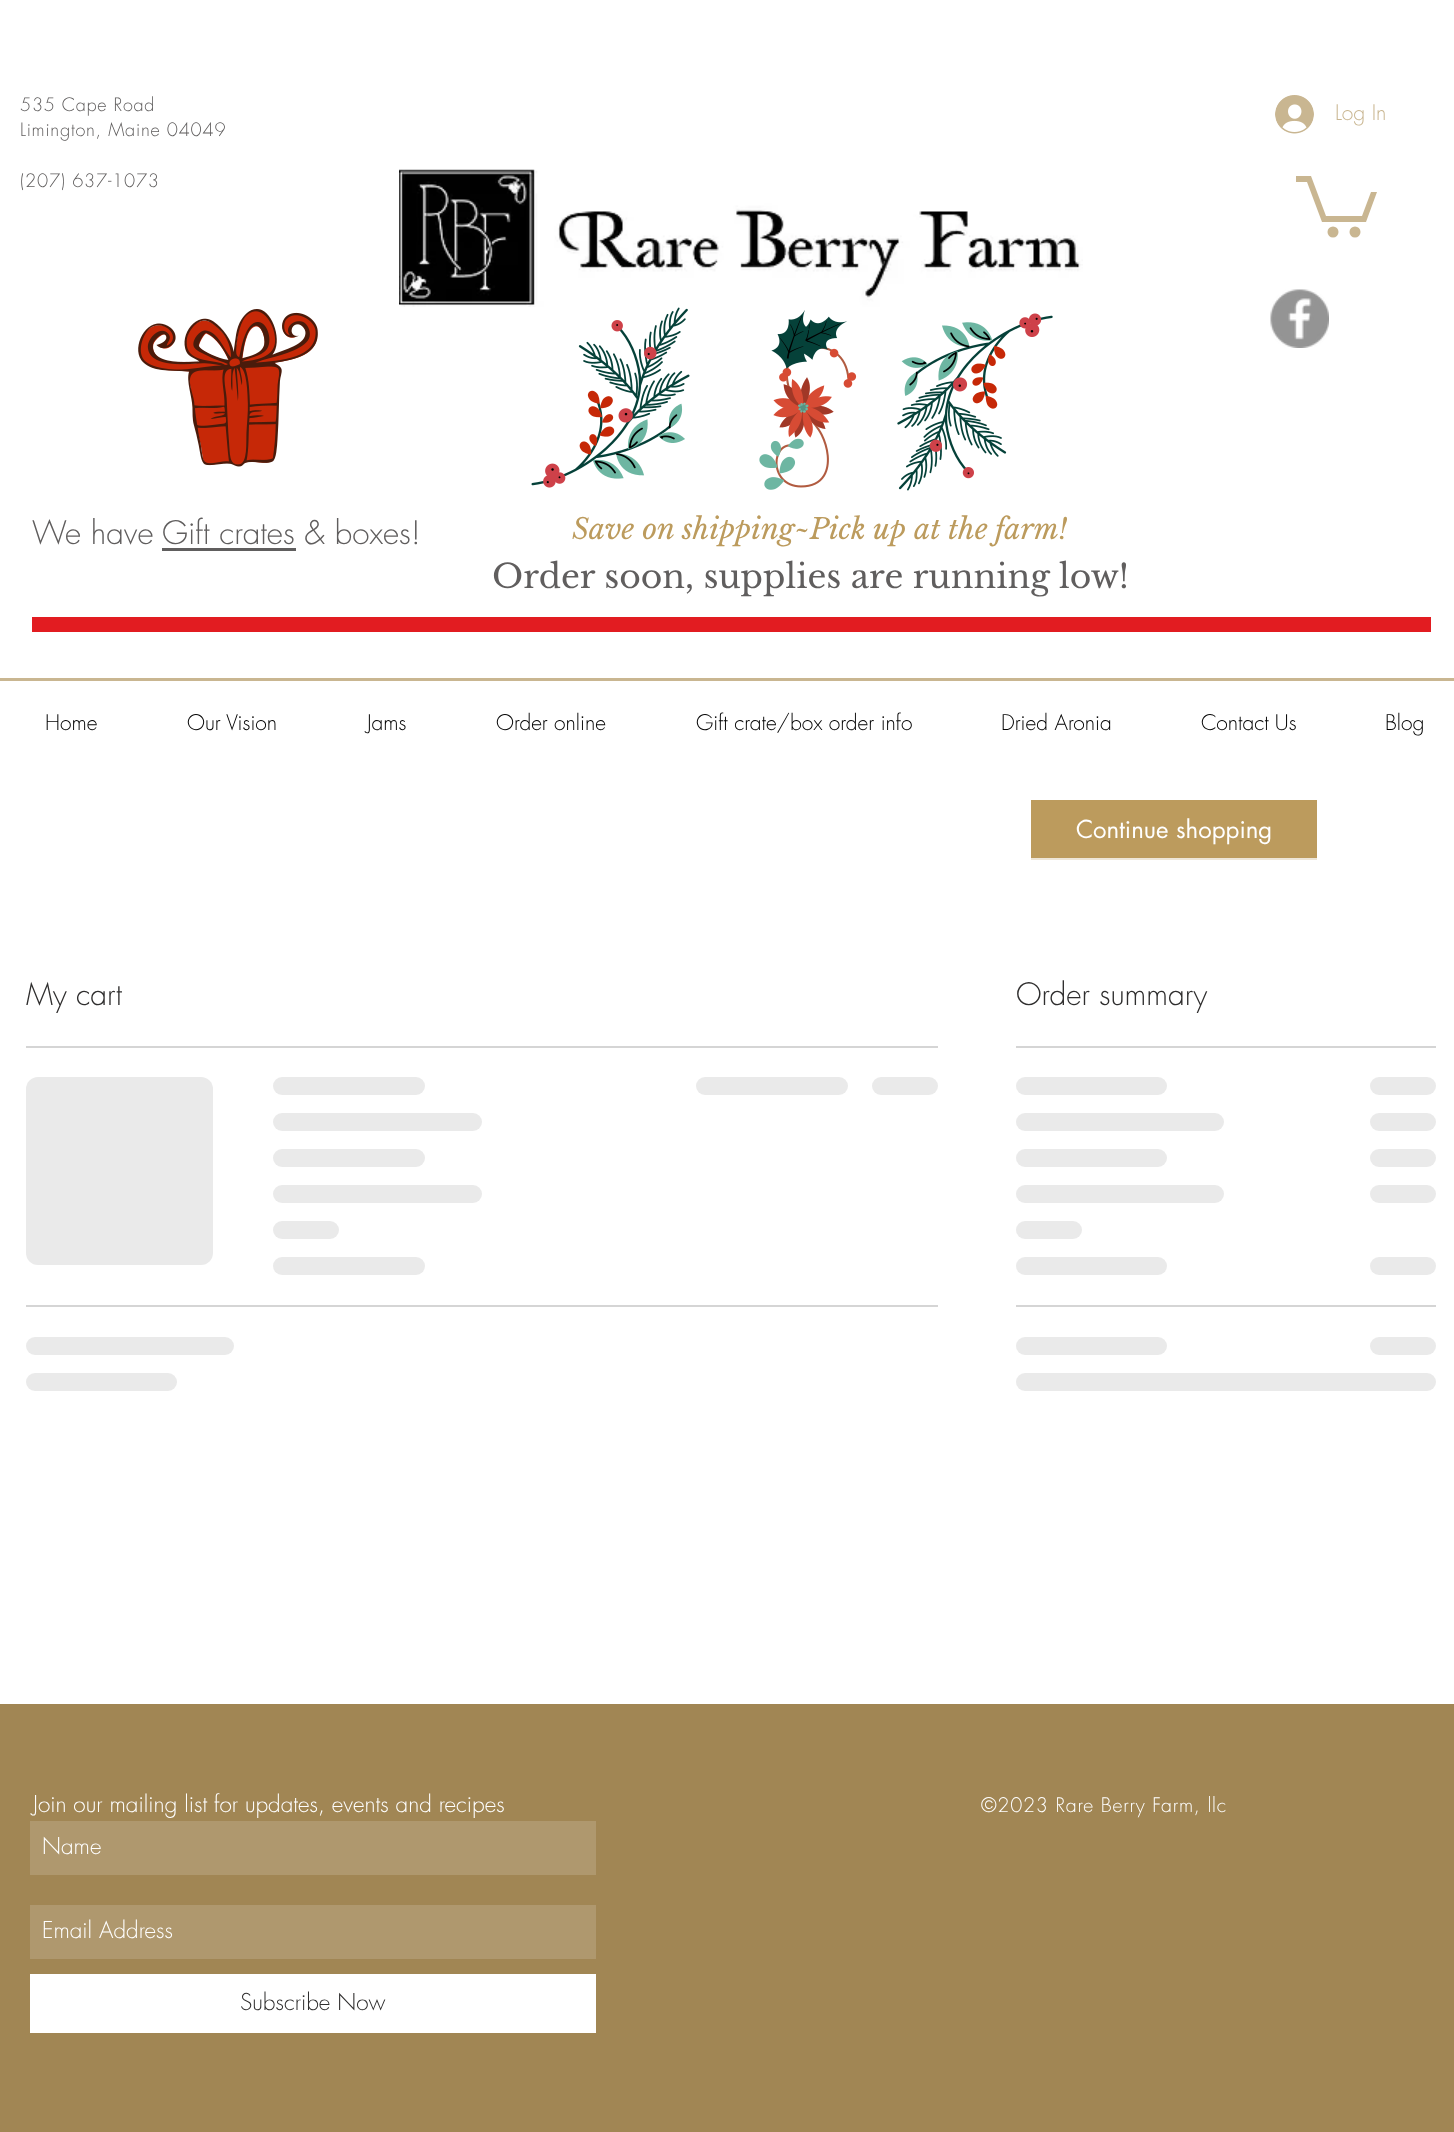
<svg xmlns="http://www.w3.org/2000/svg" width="1454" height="2132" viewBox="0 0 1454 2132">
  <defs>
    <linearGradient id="g1" gradientUnits="userSpaceOnUse" x1="26" y1="1171" x2="776" y2="1171"><stop offset="0.25" stop-color="rgb(234,234,234)"/><stop offset="0.37" stop-color="rgb(213,213,213)"/><stop offset="0.63" stop-color="rgb(234,234,234)"/></linearGradient>
    <linearGradient id="g2" gradientUnits="userSpaceOnUse" x1="273" y1="1086" x2="879" y2="1086"><stop offset="0.25" stop-color="rgb(234,234,234)"/><stop offset="0.37" stop-color="rgb(213,213,213)"/><stop offset="0.63" stop-color="rgb(234,234,234)"/></linearGradient>
    <linearGradient id="g3" gradientUnits="userSpaceOnUse" x1="273" y1="1122" x2="1107" y2="1122"><stop offset="0.25" stop-color="rgb(234,234,234)"/><stop offset="0.37" stop-color="rgb(213,213,213)"/><stop offset="0.63" stop-color="rgb(234,234,234)"/></linearGradient>
    <linearGradient id="g4" gradientUnits="userSpaceOnUse" x1="273" y1="1158" x2="879" y2="1158"><stop offset="0.25" stop-color="rgb(234,234,234)"/><stop offset="0.37" stop-color="rgb(213,213,213)"/><stop offset="0.63" stop-color="rgb(234,234,234)"/></linearGradient>
    <linearGradient id="g5" gradientUnits="userSpaceOnUse" x1="273" y1="1194" x2="1107" y2="1194"><stop offset="0.25" stop-color="rgb(234,234,234)"/><stop offset="0.37" stop-color="rgb(213,213,213)"/><stop offset="0.63" stop-color="rgb(234,234,234)"/></linearGradient>
    <linearGradient id="g6" gradientUnits="userSpaceOnUse" x1="273" y1="1230" x2="537" y2="1230"><stop offset="0.25" stop-color="rgb(234,234,234)"/><stop offset="0.37" stop-color="rgb(213,213,213)"/><stop offset="0.63" stop-color="rgb(234,234,234)"/></linearGradient>
    <linearGradient id="g7" gradientUnits="userSpaceOnUse" x1="273" y1="1266" x2="879" y2="1266"><stop offset="0.25" stop-color="rgb(234,234,234)"/><stop offset="0.37" stop-color="rgb(213,213,213)"/><stop offset="0.63" stop-color="rgb(234,234,234)"/></linearGradient>
    <linearGradient id="g8" gradientUnits="userSpaceOnUse" x1="696" y1="1086" x2="1302" y2="1086"><stop offset="0.25" stop-color="rgb(234,234,234)"/><stop offset="0.37" stop-color="rgb(213,213,213)"/><stop offset="0.63" stop-color="rgb(234,234,234)"/></linearGradient>
    <linearGradient id="g9" gradientUnits="userSpaceOnUse" x1="872" y1="1086" x2="1136" y2="1086"><stop offset="0.25" stop-color="rgb(234,234,234)"/><stop offset="0.37" stop-color="rgb(213,213,213)"/><stop offset="0.63" stop-color="rgb(234,234,234)"/></linearGradient>
    <linearGradient id="g10" gradientUnits="userSpaceOnUse" x1="26" y1="1346" x2="860" y2="1346"><stop offset="0.25" stop-color="rgb(234,234,234)"/><stop offset="0.37" stop-color="rgb(213,213,213)"/><stop offset="0.63" stop-color="rgb(234,234,234)"/></linearGradient>
    <linearGradient id="g11" gradientUnits="userSpaceOnUse" x1="26" y1="1382" x2="632" y2="1382"><stop offset="0.25" stop-color="rgb(234,234,234)"/><stop offset="0.37" stop-color="rgb(213,213,213)"/><stop offset="0.63" stop-color="rgb(234,234,234)"/></linearGradient>
    <linearGradient id="g12" gradientUnits="userSpaceOnUse" x1="1016" y1="1086" x2="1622" y2="1086"><stop offset="0.25" stop-color="rgb(234,234,234)"/><stop offset="0.37" stop-color="rgb(213,213,213)"/><stop offset="0.63" stop-color="rgb(234,234,234)"/></linearGradient>
    <linearGradient id="g13" gradientUnits="userSpaceOnUse" x1="1370" y1="1086" x2="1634" y2="1086"><stop offset="0.25" stop-color="rgb(234,234,234)"/><stop offset="0.37" stop-color="rgb(213,213,213)"/><stop offset="0.63" stop-color="rgb(234,234,234)"/></linearGradient>
    <linearGradient id="g14" gradientUnits="userSpaceOnUse" x1="1016" y1="1122" x2="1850" y2="1122"><stop offset="0.25" stop-color="rgb(234,234,234)"/><stop offset="0.37" stop-color="rgb(213,213,213)"/><stop offset="0.63" stop-color="rgb(234,234,234)"/></linearGradient>
    <linearGradient id="g15" gradientUnits="userSpaceOnUse" x1="1370" y1="1122" x2="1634" y2="1122"><stop offset="0.25" stop-color="rgb(234,234,234)"/><stop offset="0.37" stop-color="rgb(213,213,213)"/><stop offset="0.63" stop-color="rgb(234,234,234)"/></linearGradient>
    <linearGradient id="g16" gradientUnits="userSpaceOnUse" x1="1016" y1="1158" x2="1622" y2="1158"><stop offset="0.25" stop-color="rgb(234,234,234)"/><stop offset="0.37" stop-color="rgb(213,213,213)"/><stop offset="0.63" stop-color="rgb(234,234,234)"/></linearGradient>
    <linearGradient id="g17" gradientUnits="userSpaceOnUse" x1="1370" y1="1158" x2="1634" y2="1158"><stop offset="0.25" stop-color="rgb(234,234,234)"/><stop offset="0.37" stop-color="rgb(213,213,213)"/><stop offset="0.63" stop-color="rgb(234,234,234)"/></linearGradient>
    <linearGradient id="g18" gradientUnits="userSpaceOnUse" x1="1016" y1="1194" x2="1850" y2="1194"><stop offset="0.25" stop-color="rgb(234,234,234)"/><stop offset="0.37" stop-color="rgb(213,213,213)"/><stop offset="0.63" stop-color="rgb(234,234,234)"/></linearGradient>
    <linearGradient id="g19" gradientUnits="userSpaceOnUse" x1="1370" y1="1194" x2="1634" y2="1194"><stop offset="0.25" stop-color="rgb(234,234,234)"/><stop offset="0.37" stop-color="rgb(213,213,213)"/><stop offset="0.63" stop-color="rgb(234,234,234)"/></linearGradient>
    <linearGradient id="g20" gradientUnits="userSpaceOnUse" x1="1016" y1="1230" x2="1280" y2="1230"><stop offset="0.25" stop-color="rgb(234,234,234)"/><stop offset="0.37" stop-color="rgb(213,213,213)"/><stop offset="0.63" stop-color="rgb(234,234,234)"/></linearGradient>
    <linearGradient id="g21" gradientUnits="userSpaceOnUse" x1="1016" y1="1266" x2="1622" y2="1266"><stop offset="0.25" stop-color="rgb(234,234,234)"/><stop offset="0.37" stop-color="rgb(213,213,213)"/><stop offset="0.63" stop-color="rgb(234,234,234)"/></linearGradient>
    <linearGradient id="g22" gradientUnits="userSpaceOnUse" x1="1370" y1="1266" x2="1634" y2="1266"><stop offset="0.25" stop-color="rgb(234,234,234)"/><stop offset="0.37" stop-color="rgb(213,213,213)"/><stop offset="0.63" stop-color="rgb(234,234,234)"/></linearGradient>
    <linearGradient id="g23" gradientUnits="userSpaceOnUse" x1="1016" y1="1346" x2="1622" y2="1346"><stop offset="0.25" stop-color="rgb(234,234,234)"/><stop offset="0.37" stop-color="rgb(213,213,213)"/><stop offset="0.63" stop-color="rgb(234,234,234)"/></linearGradient>
    <linearGradient id="g24" gradientUnits="userSpaceOnUse" x1="1370" y1="1346" x2="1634" y2="1346"><stop offset="0.25" stop-color="rgb(234,234,234)"/><stop offset="0.37" stop-color="rgb(213,213,213)"/><stop offset="0.63" stop-color="rgb(234,234,234)"/></linearGradient>
    <linearGradient id="g25" gradientUnits="userSpaceOnUse" x1="1016" y1="1382" x2="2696" y2="1382"><stop offset="0.25" stop-color="rgb(234,234,234)"/><stop offset="0.37" stop-color="rgb(213,213,213)"/><stop offset="0.63" stop-color="rgb(234,234,234)"/></linearGradient>
  </defs>
  <rect width="100%" height="100%" fill="rgb(255,255,255)"/>
  <g font-family="futura" font-size="18" font-weight="300" letter-spacing="0.75" fill="rgb(96,94,94)">
    <text>
      <tspan x="20" y="111">535 Cape Road</tspan>
      <tspan x="20" y="136">Limington, Maine 04049</tspan>
    </text>
    <text x="20" y="187">(207) 637-1073</text>
  </g>
  <image x="1275" y="95" width="39" height="39" href="pic1.png"/>
  <text x="1335" y="120" font-family="futura" font-size="21" font-weight="300" fill="rgb(201,182,145)">Log In</text>
  <image x="399" y="169" width="684" height="138" href="pic2.png"/>
  <path d="M1377 192L1366 222H1322L1307 182H1296V176H1311L1326 216H1362L1371 192" fill="rgb(201,182,145)"/>
  <circle cx="1355" cy="232" r="5.5" fill="rgb(201,182,145)"/>
  <circle cx="1333" cy="232" r="5.5" fill="rgb(201,182,145)"/>
  <image x="138" y="309" width="180" height="158" href="pic3.png"/>
  <image x="531" y="307" width="159" height="181" href="pic4.png"/>
  <image x="759" y="310" width="98" height="180" href="pic5.png"/>
  <image x="897" y="313" width="156" height="178" href="pic6.png"/>
  <image x="1270" y="289" width="59" height="59" href="pic7.png"/>
  <g font-family="futura" font-size="31.5" font-weight="300" fill="rgb(96,94,94)">
    <text x="32" y="544">We have</text>
    <text x="162" y="544">Gift crates &amp; boxes!</text>
  </g>
  <rect x="162" y="548" width="134" height="3" fill="rgb(96,94,94)"/>
  <text x="572" y="539" font-family="Libre Baskerville" font-size="28.5" font-style="italic" fill="rgb(188,155,93)">Save on shipping~Pick up at the farm!</text>
  <text x="492" y="588" font-family="Libre Baskerville" font-size="33" fill="rgb(96,94,94)">Order soon, supplies are running low!</text>
  <rect x="32" y="617" width="1399" height="15" fill="rgb(226,28,33)"/>
  <rect x="0" y="678" width="1454" height="3" fill="rgb(201,182,145)"/>
  <g font-family="futura" font-size="21" font-weight="300" fill="rgb(0,0,0)">
    <text x="45" y="730">Home</text>
    <text x="187" y="730">Our Vision</text>
    <text x="367" y="730">Jams</text>
    <text x="496" y="730">Order online</text>
    <text x="696" y="730">Gift crate/box order info</text>
    <text x="1001" y="730">Dried Aronia</text>
    <text x="1201" y="730">Contact Us</text>
    <text x="1385" y="730">Blog</text>
  </g>
  <rect x="1031" y="800" width="286" height="58" fill="rgb(188,155,93)"/>
  <rect x="1031" y="858" width="286" height="2" fill="rgb(238,230,215)"/>
  <text x="1076" y="838" font-family="futura" font-size="24" fill="rgb(255,255,255)">Continue shopping</text>
  <rect x="26" y="1046" width="912" height="2" fill="rgb(213,213,213)"/>
  <text x="26" y="1005" font-family="futura" font-size="30" font-weight="300" fill="rgb(47,46,46)">My cart</text>
  <rect x="26" y="1077" width="187" height="188" rx="12" fill="url(#g1)"/>
  <rect x="273" y="1077" width="152" height="18" rx="9" fill="url(#g2)"/>
  <rect x="273" y="1113" width="209" height="18" rx="9" fill="url(#g3)"/>
  <rect x="273" y="1149" width="152" height="18" rx="9" fill="url(#g4)"/>
  <rect x="273" y="1185" width="209" height="18" rx="9" fill="url(#g5)"/>
  <rect x="273" y="1221" width="66" height="18" rx="9" fill="url(#g6)"/>
  <rect x="273" y="1257" width="152" height="18" rx="9" fill="url(#g7)"/>
  <rect x="696" y="1077" width="152" height="18" rx="9" fill="url(#g8)"/>
  <rect x="872" y="1077" width="66" height="18" rx="9" fill="url(#g9)"/>
  <rect x="26" y="1305" width="912" height="2" fill="rgb(213,213,213)"/>
  <rect x="26" y="1337" width="208" height="18" rx="9" fill="url(#g10)"/>
  <rect x="26" y="1373" width="151" height="18" rx="9" fill="url(#g11)"/>
  <rect x="1016" y="1046" width="420" height="2" fill="rgb(213,213,213)"/>
  <text x="1016" y="1005" font-family="futura" font-size="30" font-weight="300" fill="rgb(47,46,46)">Order summary</text>
  <rect x="1016" y="1077" width="151" height="18" rx="9" fill="url(#g12)"/>
  <rect x="1370" y="1077" width="66" height="18" rx="9" fill="url(#g13)"/>
  <rect x="1016" y="1113" width="208" height="18" rx="9" fill="url(#g14)"/>
  <rect x="1370" y="1113" width="66" height="18" rx="9" fill="url(#g15)"/>
  <rect x="1016" y="1149" width="151" height="18" rx="9" fill="url(#g16)"/>
  <rect x="1370" y="1149" width="66" height="18" rx="9" fill="url(#g17)"/>
  <rect x="1016" y="1185" width="208" height="18" rx="9" fill="url(#g18)"/>
  <rect x="1370" y="1185" width="66" height="18" rx="9" fill="url(#g19)"/>
  <rect x="1016" y="1221" width="66" height="18" rx="9" fill="url(#g20)"/>
  <rect x="1016" y="1257" width="151" height="18" rx="9" fill="url(#g21)"/>
  <rect x="1370" y="1257" width="66" height="18" rx="9" fill="url(#g22)"/>
  <rect x="1016" y="1305" width="420" height="2" fill="rgb(213,213,213)"/>
  <rect x="1016" y="1337" width="151" height="18" rx="9" fill="url(#g23)"/>
  <rect x="1370" y="1337" width="66" height="18" rx="9" fill="url(#g24)"/>
  <rect x="1016" y="1373" width="420" height="18" rx="9" fill="url(#g25)"/>
  <rect x="0" y="1704" width="1454" height="428" fill="rgb(161,134,84)"/>
  <text x="33" y="1812" font-family="futura" font-size="22.5" font-weight="300" fill="rgb(255,255,255)">Join our mailing list for updates, events and recipes</text>
  <rect x="30" y="1821" width="566" height="54" fill="rgb(175,152,110)"/>
  <text x="42" y="1854" font-family="futura" font-size="22.5" font-weight="300" fill="rgb(255,255,255)">Name</text>
  <rect x="30" y="1905" width="566" height="54" fill="rgb(175,152,110)"/>
  <text x="42" y="1938" font-family="futura" font-size="22.5" font-weight="300" fill="rgb(255,255,255)">Email Address</text>
  <rect x="30" y="1974" width="566" height="59" fill="rgb(255,255,255)"/>
  <text x="240" y="2010" font-family="futura" font-size="22.5" font-weight="300" fill="rgb(47,46,46)">Subscribe Now</text>
  <text x="981" y="1812" font-family="futura" font-size="19.5" font-weight="300" letter-spacing="0.75" fill="rgb(255,255,255)">©2023 Rare Berry Farm, llc</text>
</svg>
